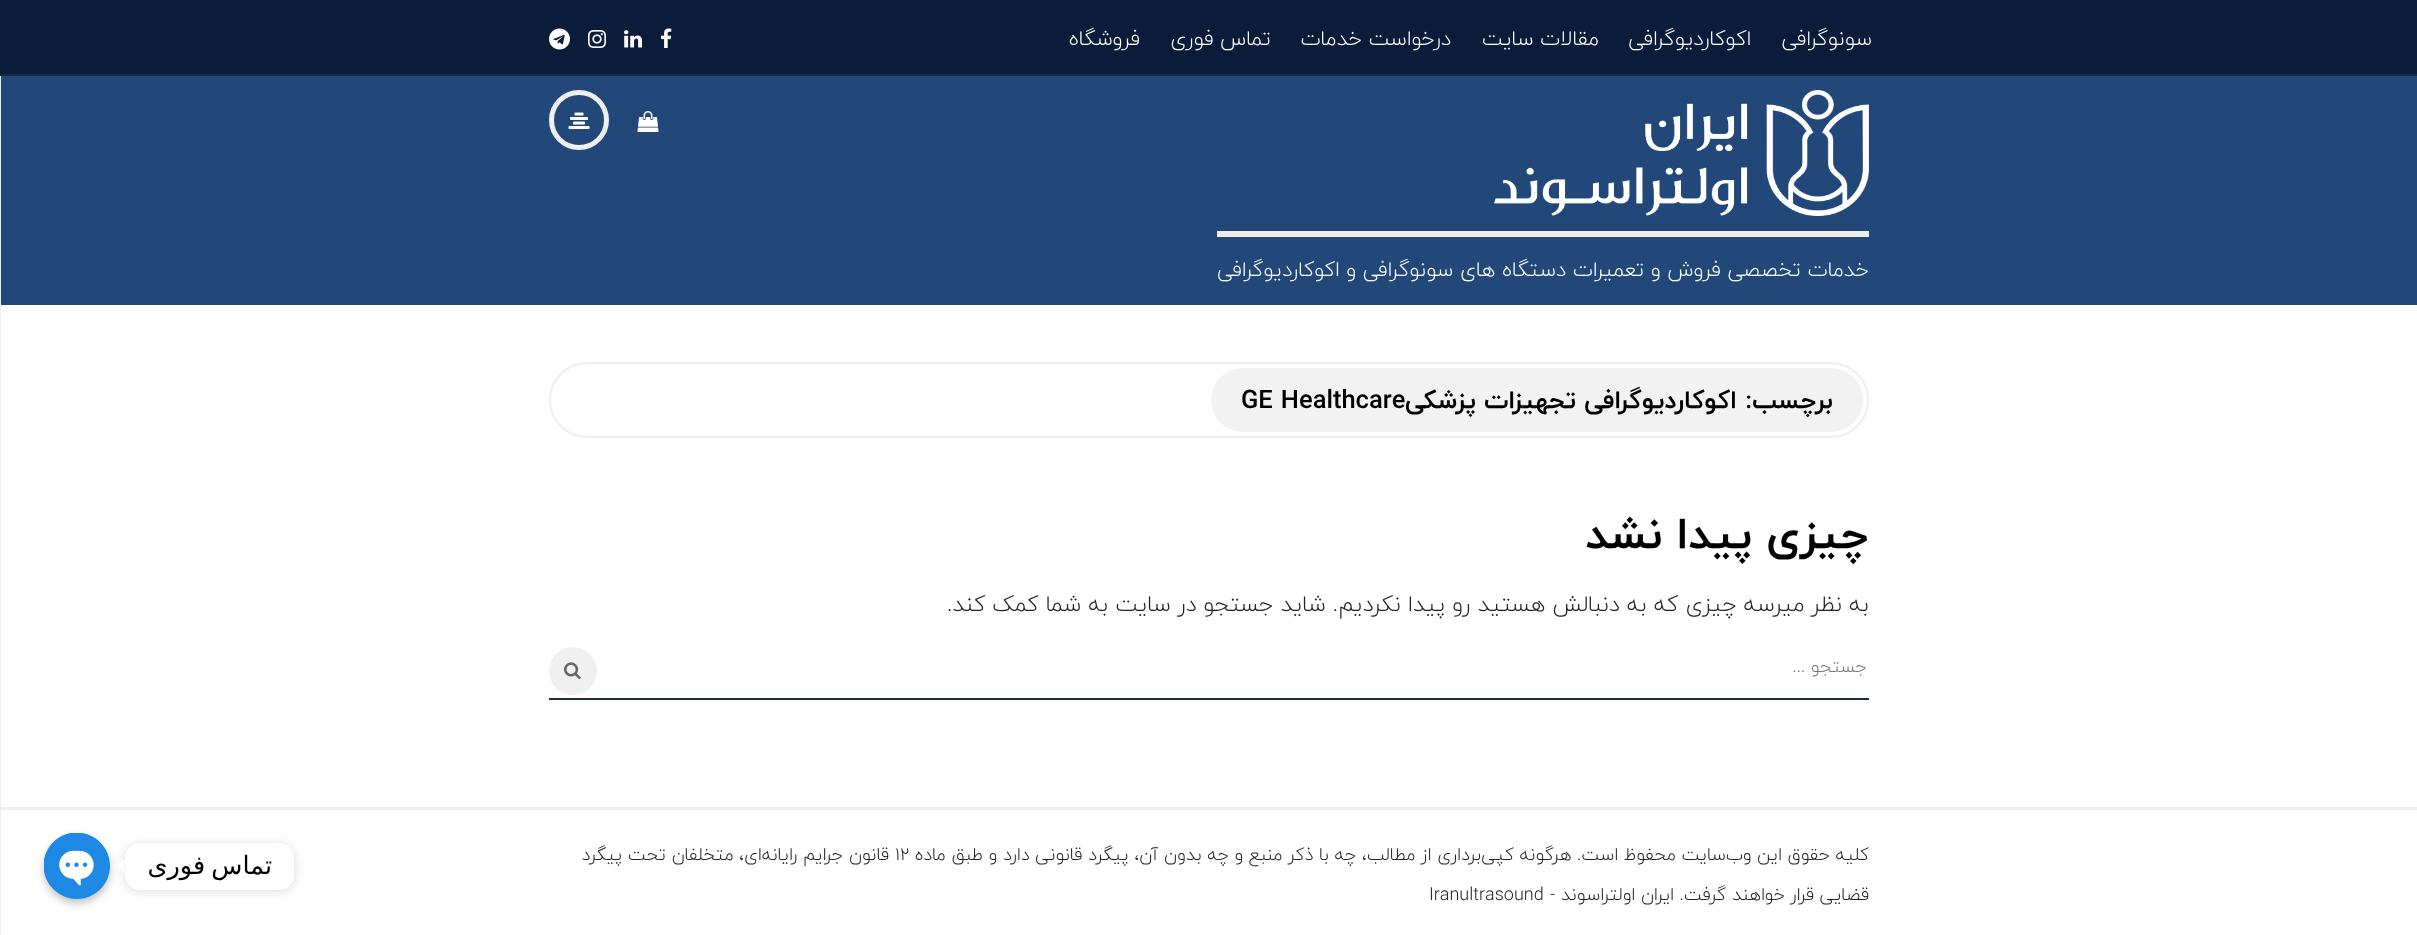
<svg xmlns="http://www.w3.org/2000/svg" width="2417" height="935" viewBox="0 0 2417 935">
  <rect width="100%" height="100%" fill="rgb(255,255,255)"/>
  <rect x="0" y="0" width="2417" height="74" fill="rgb(10,28,57)"/>
  <rect x="0" y="807" width="2417" height="3" fill="rgb(239,239,239)"/>
  <rect x="0" y="75" width="1" height="860" fill="rgb(238,238,238)"/>
  <rect x="0" y="74" width="2417" height="2" fill="rgb(27,43,70)"/>
  <g font-family="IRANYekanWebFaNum" font-size="21" font-weight="300" direction="rtl" fill="rgb(255,255,255)">
    <text x="1872" y="45">سونوگرافی</text>
    <text x="1751" y="45">اکوکاردیوگرافی</text>
    <text x="1599" y="45">مقالات سایت</text>
    <text x="1451" y="45">درخواست خدمات</text>
    <text x="1271" y="45">تماس فوری</text>
    <text x="1140" y="45">فروشگاه</text>
  </g>
  <image x="661" y="28" width="11" height="20" href="pic1.png"/>
  <image x="624" y="30" width="18" height="18" href="pic2.png"/>
  <image x="588" y="30" width="18" height="18" href="pic3.png"/>
  <image x="549" y="28" width="21" height="22" href="pic4.png"/>
  <rect x="1" y="76" width="2416" height="229" fill="rgb(34,72,122)"/>
  <image x="637" y="111" width="22" height="21" href="pic5.png"/>
  <circle cx="579" cy="120" r="27.5" fill="none" stroke="rgb(239,239,239)" stroke-width="5"/>
  <image x="568" y="112" width="22" height="17" href="pic6.png"/>
  <image x="1494" y="90" width="375" height="126" href="pic7.png"/>
  <rect x="1217" y="231" width="652" height="6" fill="rgb(238,238,238)"/>
  <text x="1869" y="276" font-family="IRANYekanWebFaNum" font-size="21" font-weight="300" direction="rtl" fill="rgb(255,255,255)">خدمات تخصصی فروش و تعمیرات دستگاه های سونوگرافی و اکوکاردیوگرافی</text>
  <rect x="550" y="363" width="1318" height="74" rx="37" fill="none" stroke="rgb(238,238,238)" stroke-width="2"/>
  <rect x="1211" y="368" width="652" height="64" rx="32" fill="rgb(242,242,242)"/>
  <g font-family="IRANYekanWebFaNum" font-size="25.5" font-weight="bold" direction="rtl" fill="rgb(0,0,0)">
    <text x="1833" y="408">برچسب:</text>
    <text x="1737" y="408">اکوکاردیوگرافی تجهیزات پزشکی</text>
  </g>
  <text x="1241" y="408" font-family="IRANYekanWebFaNum" font-size="25.5" font-weight="bold" fill="rgb(0,0,0)">GE Healthcare</text>
  <text x="1869" y="548" font-family="IRANYekanWebFaNum" font-size="45" font-weight="bold" direction="rtl" fill="rgb(0,0,0)">چیزی پیدا نشد</text>
  <text x="1869" y="611" font-family="IRANYekanWebFaNum" font-size="22.5" font-weight="300" direction="rtl" fill="rgb(34,34,34)">به نظر میرسه چیزی که به دنبالش هستید رو پیدا نکردیم. شاید جستجو در سایت به شما کمک کند.</text>
  <rect x="549" y="698" width="1320" height="2" fill="rgb(27,43,70)"/>
  <text x="1867" y="672" font-family="IRANYekanWebFaNum" font-size="18" font-weight="300" direction="rtl" fill="rgb(117,117,117)">جستجو ...</text>
  <circle cx="573" cy="671" r="24" fill="rgb(240,240,240)"/>
  <image x="564" y="662" width="17" height="17" href="pic8.png"/>
  <text x="1869" y="860" font-family="IRANYekanWebFaNum" font-size="18" font-weight="300" direction="rtl" fill="rgb(34,34,34)">کلیه حقوق این وب‌سایت محفوظ است. هرگونه کپی‌برداری از مطالب، چه با ذکر منبع و چه بدون آن، پیگرد قانونی دارد و طبق ماده</text>
  <text x="895" y="860" font-family="IRANYekanWebFaNum" font-size="18" font-weight="300" fill="rgb(34,34,34)">۱۲</text>
  <g font-family="IRANYekanWebFaNum" font-size="18" font-weight="300" direction="rtl" fill="rgb(34,34,34)">
    <text x="889" y="860">قانون جرایم رایانه‌ای، متخلفان تحت پیگرد</text>
    <text x="1869" y="900">قضایی قرار خواهند گرفت.</text>
    <text x="1674" y="900">ایران اولتراسوند -</text>
  </g>
  <text x="1429" y="900" font-family="IRANYekanWebFaNum" font-size="18" font-weight="300" fill="rgb(34,34,34)">Iranultrasound</text>
  <rect x="125" y="845" width="169" height="46" rx="15" fill="rgba(0,0,0,0.15)" filter="blur(6px)"/>
  <rect x="125" y="843" width="169" height="47" rx="15" fill="rgb(255,255,255)"/>
  <text x="272" y="874" word-spacing="-2" font-family="DejaVu Sans" font-size="25.5" direction="rtl" fill="rgb(0,0,0)">تماس فوری</text>
  <path d="M124.5 859V874L117 866Z" fill="rgb(255,255,255)"/>
  <rect x="44" y="837" width="66" height="66" rx="33" fill="rgba(0,0,0,0.25)" filter="blur(4.5px)"/>
  <circle cx="77" cy="866" r="33" fill="rgb(30,136,229)"/>
  <image x="44" y="833" width="66" height="66" href="pic9.png"/>
</svg>
